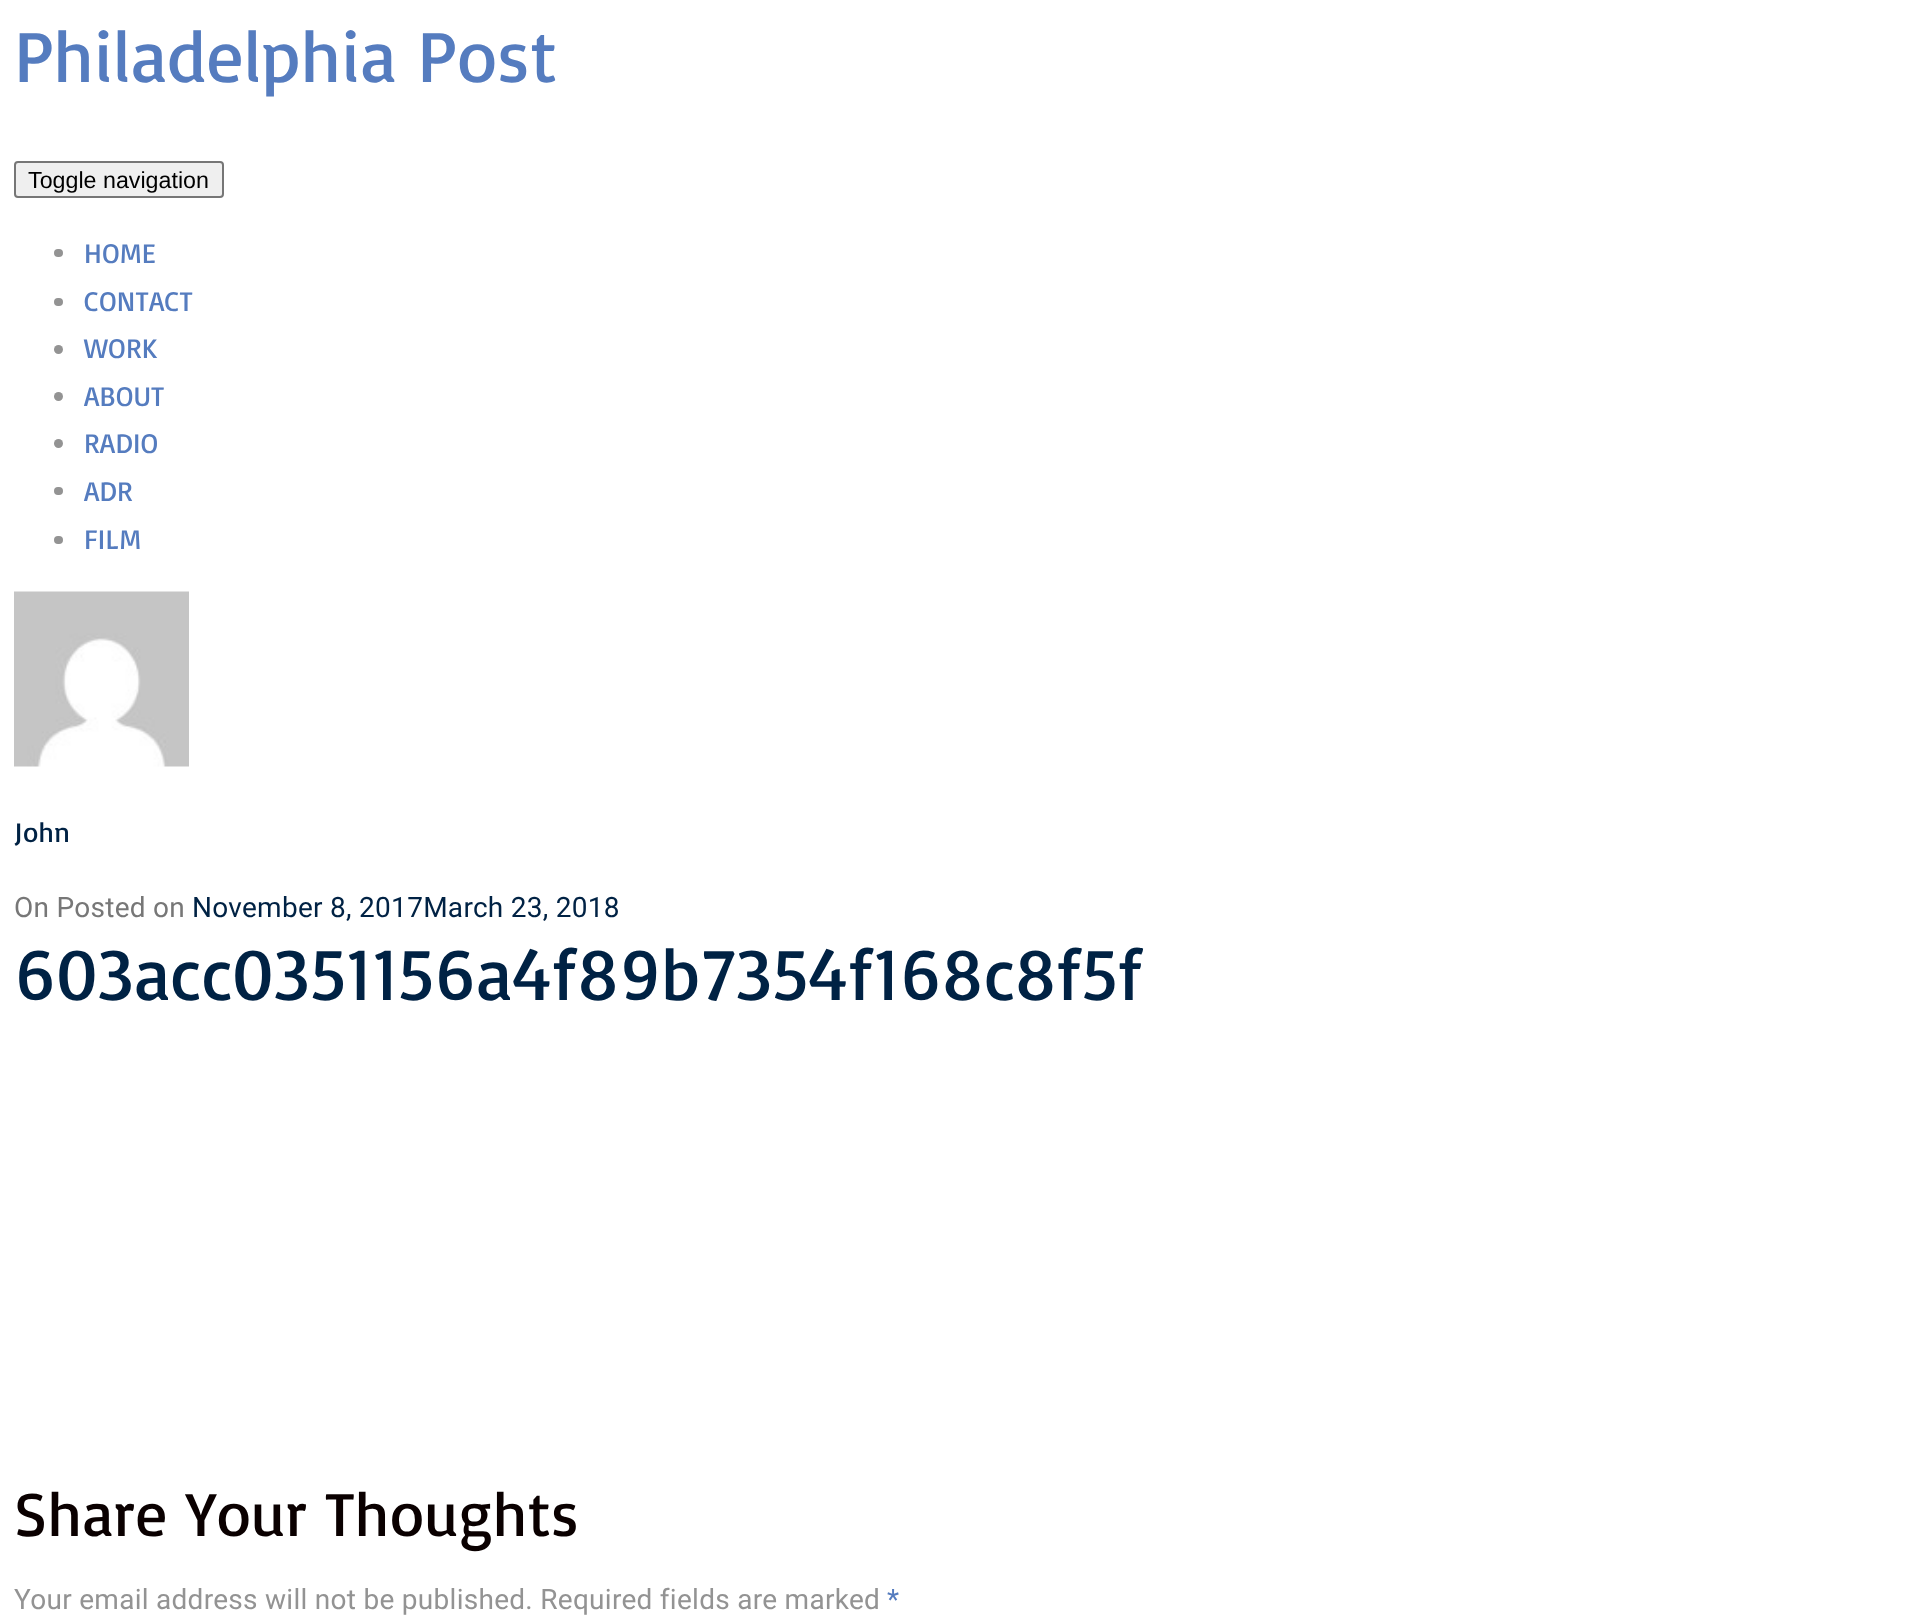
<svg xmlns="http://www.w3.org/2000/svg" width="1920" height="1624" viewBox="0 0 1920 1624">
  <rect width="100%" height="100%" fill="rgb(255,255,255)"/>
  <text x="14" y="82" font-family="Basic" font-size="73.5" letter-spacing="0.28" fill="rgb(85,124,191)">Philadelphia Post</text>
  <rect x="15" y="162" width="208" height="35" rx="3" fill="rgb(239,239,239)" stroke="rgb(118,118,118)" stroke-width="2"/>
  <text x="28" y="188" font-family="Liberation Sans" font-size="23.25" fill="rgb(0,0,0)">Toggle navigation</text>
  <rect x="54" y="249" width="9" height="8" rx="4" fill="rgb(147,147,147)"/>
  <text x="84" y="263" font-family="Basic" font-size="28" letter-spacing="0.28" fill="rgb(85,124,191)">HOME</text>
  <rect x="54" y="298" width="9" height="8" rx="4" fill="rgb(147,147,147)"/>
  <text x="84" y="311" font-family="Basic" font-size="28" letter-spacing="0.28" fill="rgb(85,124,191)">CONTACT</text>
  <circle cx="58.5" cy="349.5" r="4.5" fill="rgb(147,147,147)"/>
  <text x="84" y="358" font-family="Basic" font-size="28" letter-spacing="0.28" fill="rgb(85,124,191)">WORK</text>
  <circle cx="58.5" cy="396.5" r="4.5" fill="rgb(147,147,147)"/>
  <text x="84" y="406" font-family="Basic" font-size="28" letter-spacing="0.28" fill="rgb(85,124,191)">ABOUT</text>
  <circle cx="58.5" cy="443.5" r="4.5" fill="rgb(147,147,147)"/>
  <text x="84" y="453" font-family="Basic" font-size="28" letter-spacing="0.28" fill="rgb(85,124,191)">RADIO</text>
  <rect x="54" y="487" width="9" height="8" rx="4" fill="rgb(147,147,147)"/>
  <text x="84" y="501" font-family="Basic" font-size="28" letter-spacing="0.28" fill="rgb(85,124,191)">ADR</text>
  <rect x="54" y="536" width="9" height="8" rx="4" fill="rgb(147,147,147)"/>
  <text x="84" y="549" font-family="Basic" font-size="28" letter-spacing="0.28" fill="rgb(85,124,191)">FILM</text>
  <image x="14" y="591" width="175" height="176" href="pic1.png"/>
  <text x="14" y="842" font-family="Basic" font-size="28" letter-spacing="0.28" fill="rgb(0,34,68)">John</text>
  <text x="14" y="917" font-family="Roboto" font-size="28" letter-spacing="0.28" fill="rgb(119,119,119)">On Posted on</text>
  <text x="192" y="917" font-family="Roboto" font-size="28" letter-spacing="0.28" fill="rgb(0,34,68)">November 8, 2017March 23, 2018</text>
  <text x="14" y="1000" font-family="Basic" font-size="73.5" letter-spacing="0.28" fill="rgb(0,34,68)">603acc0351156a4f89b7354f168c8f5f</text>
  <text x="14" y="1536" font-family="Basic" font-size="63" letter-spacing="0.28" fill="rgb(10,0,0)">Share Your Thoughts</text>
  <text x="14" y="1609" font-family="Roboto" font-size="28" letter-spacing="0.28" fill="rgb(147,147,147)">Your email address will not be published. Required fields are marked</text>
  <text x="887" y="1609" font-family="Roboto" font-size="28" letter-spacing="0.28" fill="rgb(85,124,191)">*</text>
</svg>
